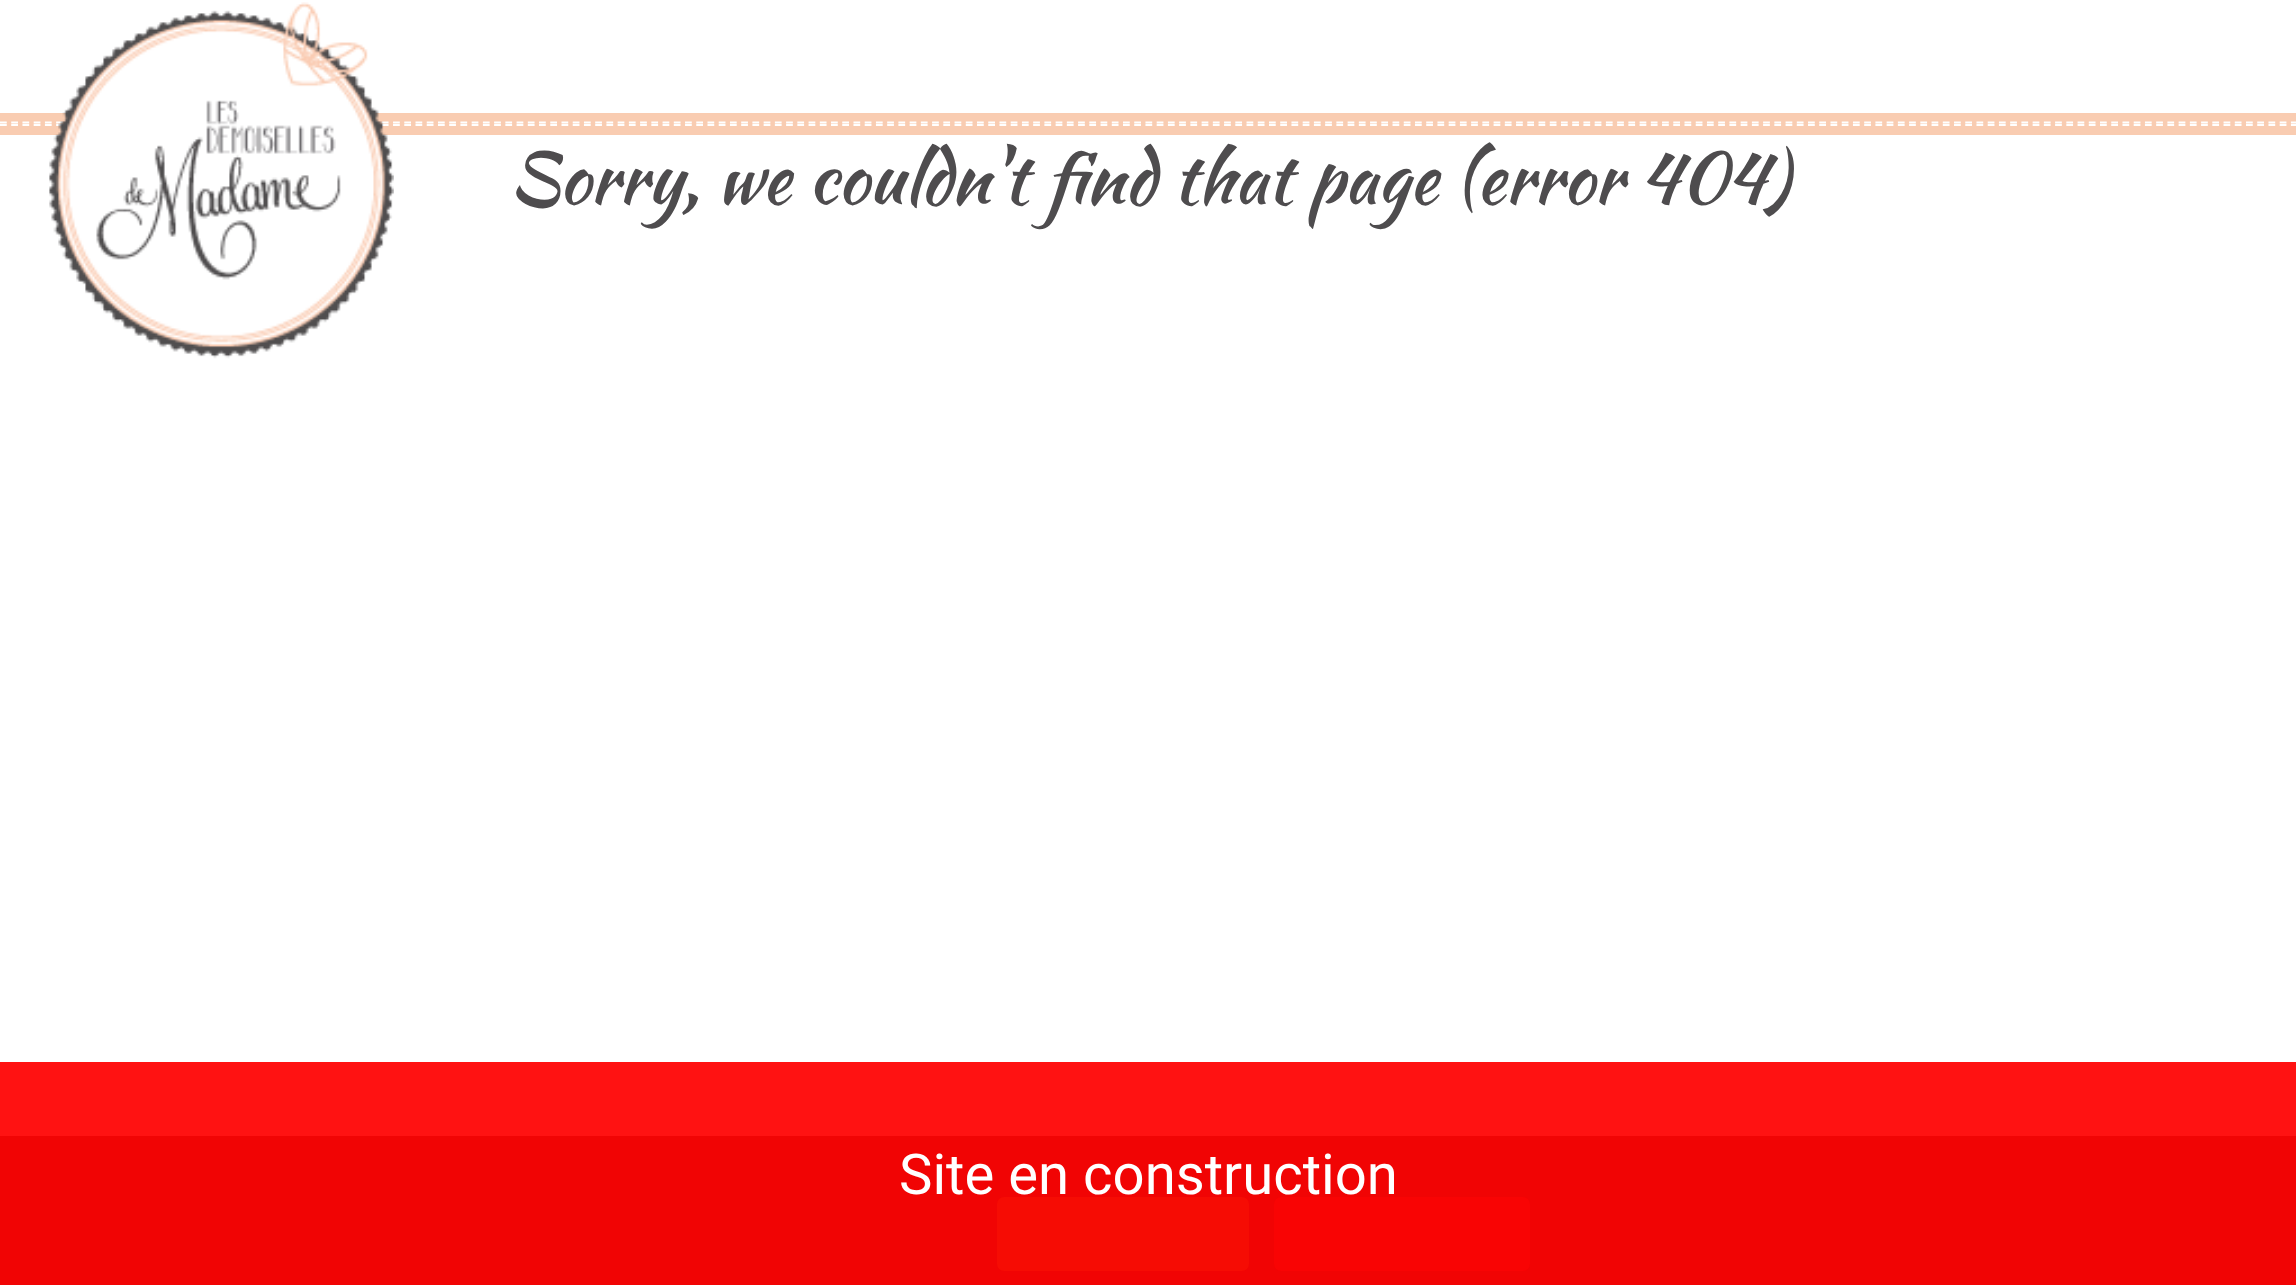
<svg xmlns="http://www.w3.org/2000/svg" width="2296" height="1285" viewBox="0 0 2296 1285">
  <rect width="100%" height="100%" fill="rgb(255,255,255)"/>
  <rect x="0" y="1062" width="2296" height="74" fill="rgb(255,18,18)"/>
  <rect x="0" y="113" width="2296" height="22" fill="rgb(249,204,177)"/>
  <path d="M0 122.5H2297" fill="none" stroke="rgb(255,255,255)" stroke-width="2.2" stroke-dasharray="6.75 4.48"/>
  <path d="M0 125H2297" fill="none" stroke="rgb(255,255,255)" stroke-width="2.2" stroke-dasharray="6.75 4.48"/>
  <image x="49" y="2" width="345" height="357" href="pic1.png"/>
  <text x="509" y="203" font-family="Kaushan Script" font-size="71.25" fill="rgb(78,76,78)">Sorry, we couldn't find that page (error 404)</text>
  <rect x="0" y="1136" width="2296" height="149" fill="rgb(241,4,4)"/>
  <rect x="997" y="1197" width="252" height="74" rx="7" fill="rgb(246,12,4)"/>
  <rect x="1274" y="1197" width="256" height="74" rx="7" fill="rgb(249,4,4)"/>
  <text x="899" y="1194" font-family="Roboto" font-size="56.25" fill="rgb(255,255,255)">Site en construction</text>
</svg>
